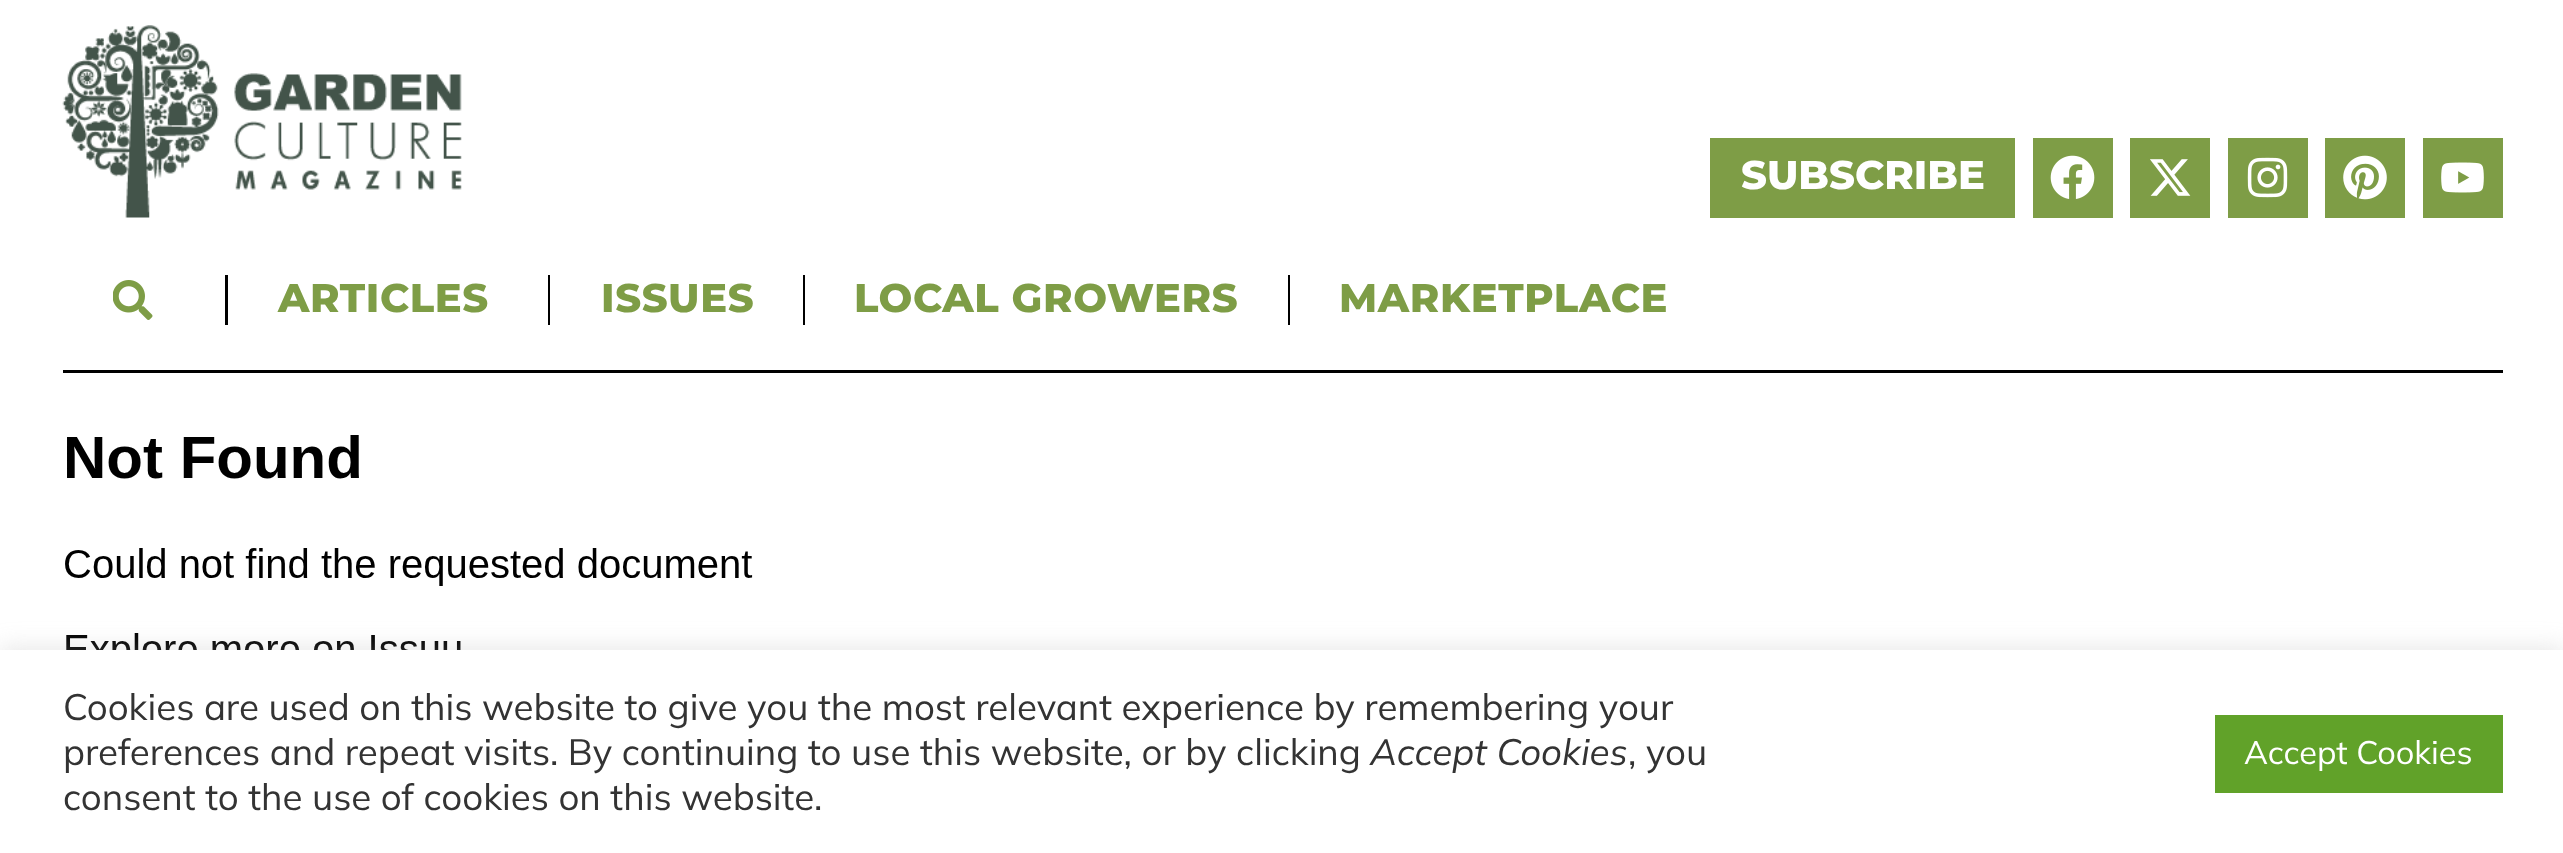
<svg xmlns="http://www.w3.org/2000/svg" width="2563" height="853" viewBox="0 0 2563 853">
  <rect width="100%" height="100%" fill="rgb(255,255,255)"/>
  <image x="62" y="25" width="400" height="193" href="pic1.png"/>
  <rect x="1710" y="138" width="305" height="80" fill="rgb(126,157,70)"/>
  <text x="1741" y="189" font-family="Montserrat" font-size="40" font-weight="800" fill="rgb(255,255,255)">SUBSCRIBE</text>
  <rect x="2033" y="138" width="80" height="80" fill="rgb(126,157,70)"/>
  <image x="2050" y="155" width="45" height="44" href="pic2.png"/>
  <rect x="2130" y="138" width="80" height="80" fill="rgb(126,157,70)"/>
  <image x="2150" y="159" width="41" height="37" href="pic3.png"/>
  <rect x="2228" y="138" width="80" height="80" fill="rgb(126,157,70)"/>
  <image x="2247" y="157" width="41" height="41" href="pic4.png"/>
  <rect x="2325" y="138" width="80" height="80" fill="rgb(126,157,70)"/>
  <image x="2343" y="155" width="44" height="45" href="pic5.png"/>
  <rect x="2423" y="138" width="80" height="80" fill="rgb(126,157,70)"/>
  <image x="2441" y="162" width="43" height="31" href="pic6.png"/>
  <rect x="63" y="370" width="2440" height="3" fill="rgb(0,0,0)"/>
  <image x="113" y="280" width="40" height="40" href="pic7.png"/>
  <rect x="225" y="275" width="3" height="50" fill="rgb(0,0,0)"/>
  <text x="278" y="312" font-family="Montserrat" font-size="40" font-weight="800" letter-spacing="0.6" fill="rgb(126,157,70)">ARTICLES</text>
  <rect x="548" y="275" width="2" height="50" fill="rgb(0,0,0)"/>
  <text x="601" y="312" font-family="Montserrat" font-size="40" font-weight="800" letter-spacing="0.6" fill="rgb(126,157,70)">ISSUES</text>
  <rect x="803" y="275" width="2" height="50" fill="rgb(0,0,0)"/>
  <text x="854" y="312" font-family="Montserrat" font-size="40" font-weight="800" letter-spacing="0.6" fill="rgb(126,157,70)">LOCAL GROWERS</text>
  <rect x="1288" y="275" width="2" height="50" fill="rgb(0,0,0)"/>
  <text x="1339" y="312" font-family="Montserrat" font-size="40" font-weight="800" letter-spacing="0.6" fill="rgb(126,157,70)">MARKETPLACE</text>
  <image x="65" y="435" width="688" height="215" href="pic8.png"/>
  <rect x="0" y="648" width="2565" height="205" fill="rgba(172,171,171,0.3)" filter="blur(12.5px)"/>
  <rect x="0" y="650" width="2563" height="203" fill="rgb(255,255,255)"/>
  <g font-family="Mulish" font-size="36.65" fill="rgb(51,51,51)">
    <text>
      <tspan x="63" y="720">Cookies are used on this website to give you the most relevant experience by remembering your</tspan>
      <tspan x="63" y="765">preferences and repeat visits. By continuing to use this website, or by clicking</tspan>
    </text>
  </g>
  <text x="1370" y="765" font-family="Mulish" font-size="36.65" font-style="italic" fill="rgb(51,51,51)">Accept Cookies</text>
  <g font-family="Mulish" font-size="36.65" fill="rgb(51,51,51)">
    <text x="1628" y="765">, you</text>
    <text x="63" y="810">consent to the use of cookies on this website.</text>
  </g>
  <rect x="2215" y="715" width="288" height="78" fill="rgb(97,162,41)"/>
  <text x="2244" y="764" font-family="Mulish" font-size="32.5" fill="rgb(255,255,255)">Accept Cookies</text>
</svg>
